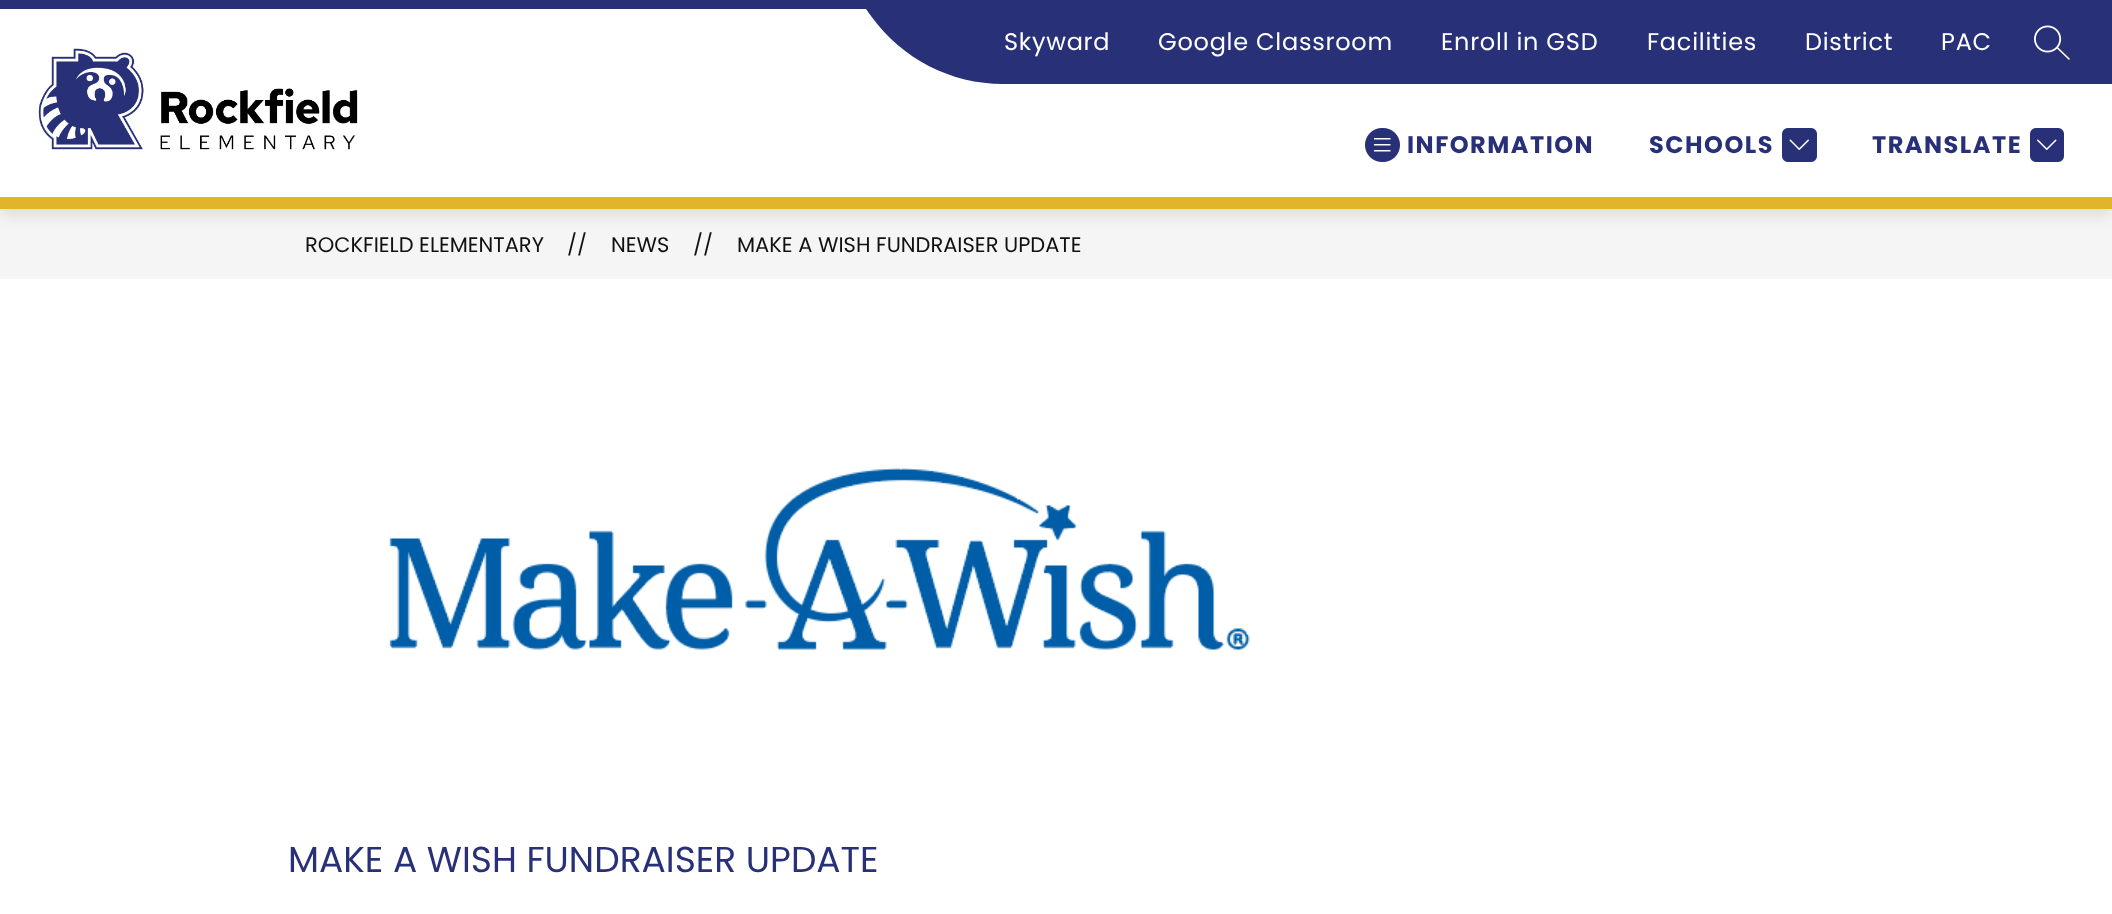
<svg xmlns="http://www.w3.org/2000/svg" width="2112" height="914" viewBox="0 0 2112 914">
  <rect width="100%" height="100%" fill="rgb(255,255,255)"/>
  <rect x="0" y="209" width="2112" height="70" fill="rgb(245,245,245)"/>
  <rect x="0" y="6" width="2112" height="209" fill="rgba(0,0,0,0.1)" filter="blur(7.5px)"/>
  <rect x="0" y="9" width="2112" height="188" fill="rgb(255,255,255)"/>
  <rect x="0" y="197" width="2112" height="12" fill="rgb(224,181,43)"/>
  <rect x="0" y="0" width="866" height="9" fill="rgb(40,49,120)"/>
  <image x="38" y="48" width="320" height="102" href="pic1.png"/>
  <rect x="1006" y="0" width="1106" height="84" fill="rgb(40,49,120)"/>
  <path d="M1003 84H1006V0H863C861 0 861 1 861 2L871 16C902 59 951 84 1003 84Z" fill="rgb(40,49,120)"/>
  <g font-family="Poppins" font-size="24" letter-spacing="0.75" fill="rgb(255,255,255)">
    <text x="1004" y="50">Skyward</text>
    <text x="1158" y="50">Google Classroom</text>
    <text x="1441" y="50">Enroll in GSD</text>
    <text x="1647" y="50">Facilities</text>
    <text x="1805" y="50">District</text>
    <text x="1941" y="50">PAC</text>
  </g>
  <image x="2034" y="25" width="36" height="35" href="pic2.png"/>
  <image x="1365" y="128" width="35" height="34" href="pic3.png"/>
  <g font-family="Poppins" font-size="24" font-weight="bold" letter-spacing="1.5" fill="rgb(40,48,120)">
    <text x="1407" y="153">INFORMATION</text>
    <text x="1649" y="153">SCHOOLS</text>
  </g>
  <image x="1782" y="128" width="35" height="34" href="pic4.png"/>
  <text x="1872" y="153" font-family="Poppins" font-size="24" font-weight="bold" letter-spacing="1.5" fill="rgb(40,48,120)">TRANSLATE</text>
  <image x="2030" y="128" width="34" height="34" href="pic5.png"/>
  <g font-family="Poppins" font-size="21" fill="rgb(17,17,17)">
    <text x="305" y="252">ROCKFIELD ELEMENTARY</text>
    <text x="567" y="252">//</text>
    <text x="611" y="252">NEWS</text>
    <text x="693" y="252">//</text>
    <text x="737" y="252">MAKE A WISH FUNDRAISER UPDATE</text>
  </g>
  <image x="389" y="467" width="861" height="183" href="pic6.png"/>
  <text x="288" y="872" font-family="Poppins" font-size="36" fill="rgb(40,48,120)">MAKE A WISH FUNDRAISER UPDATE</text>
</svg>
